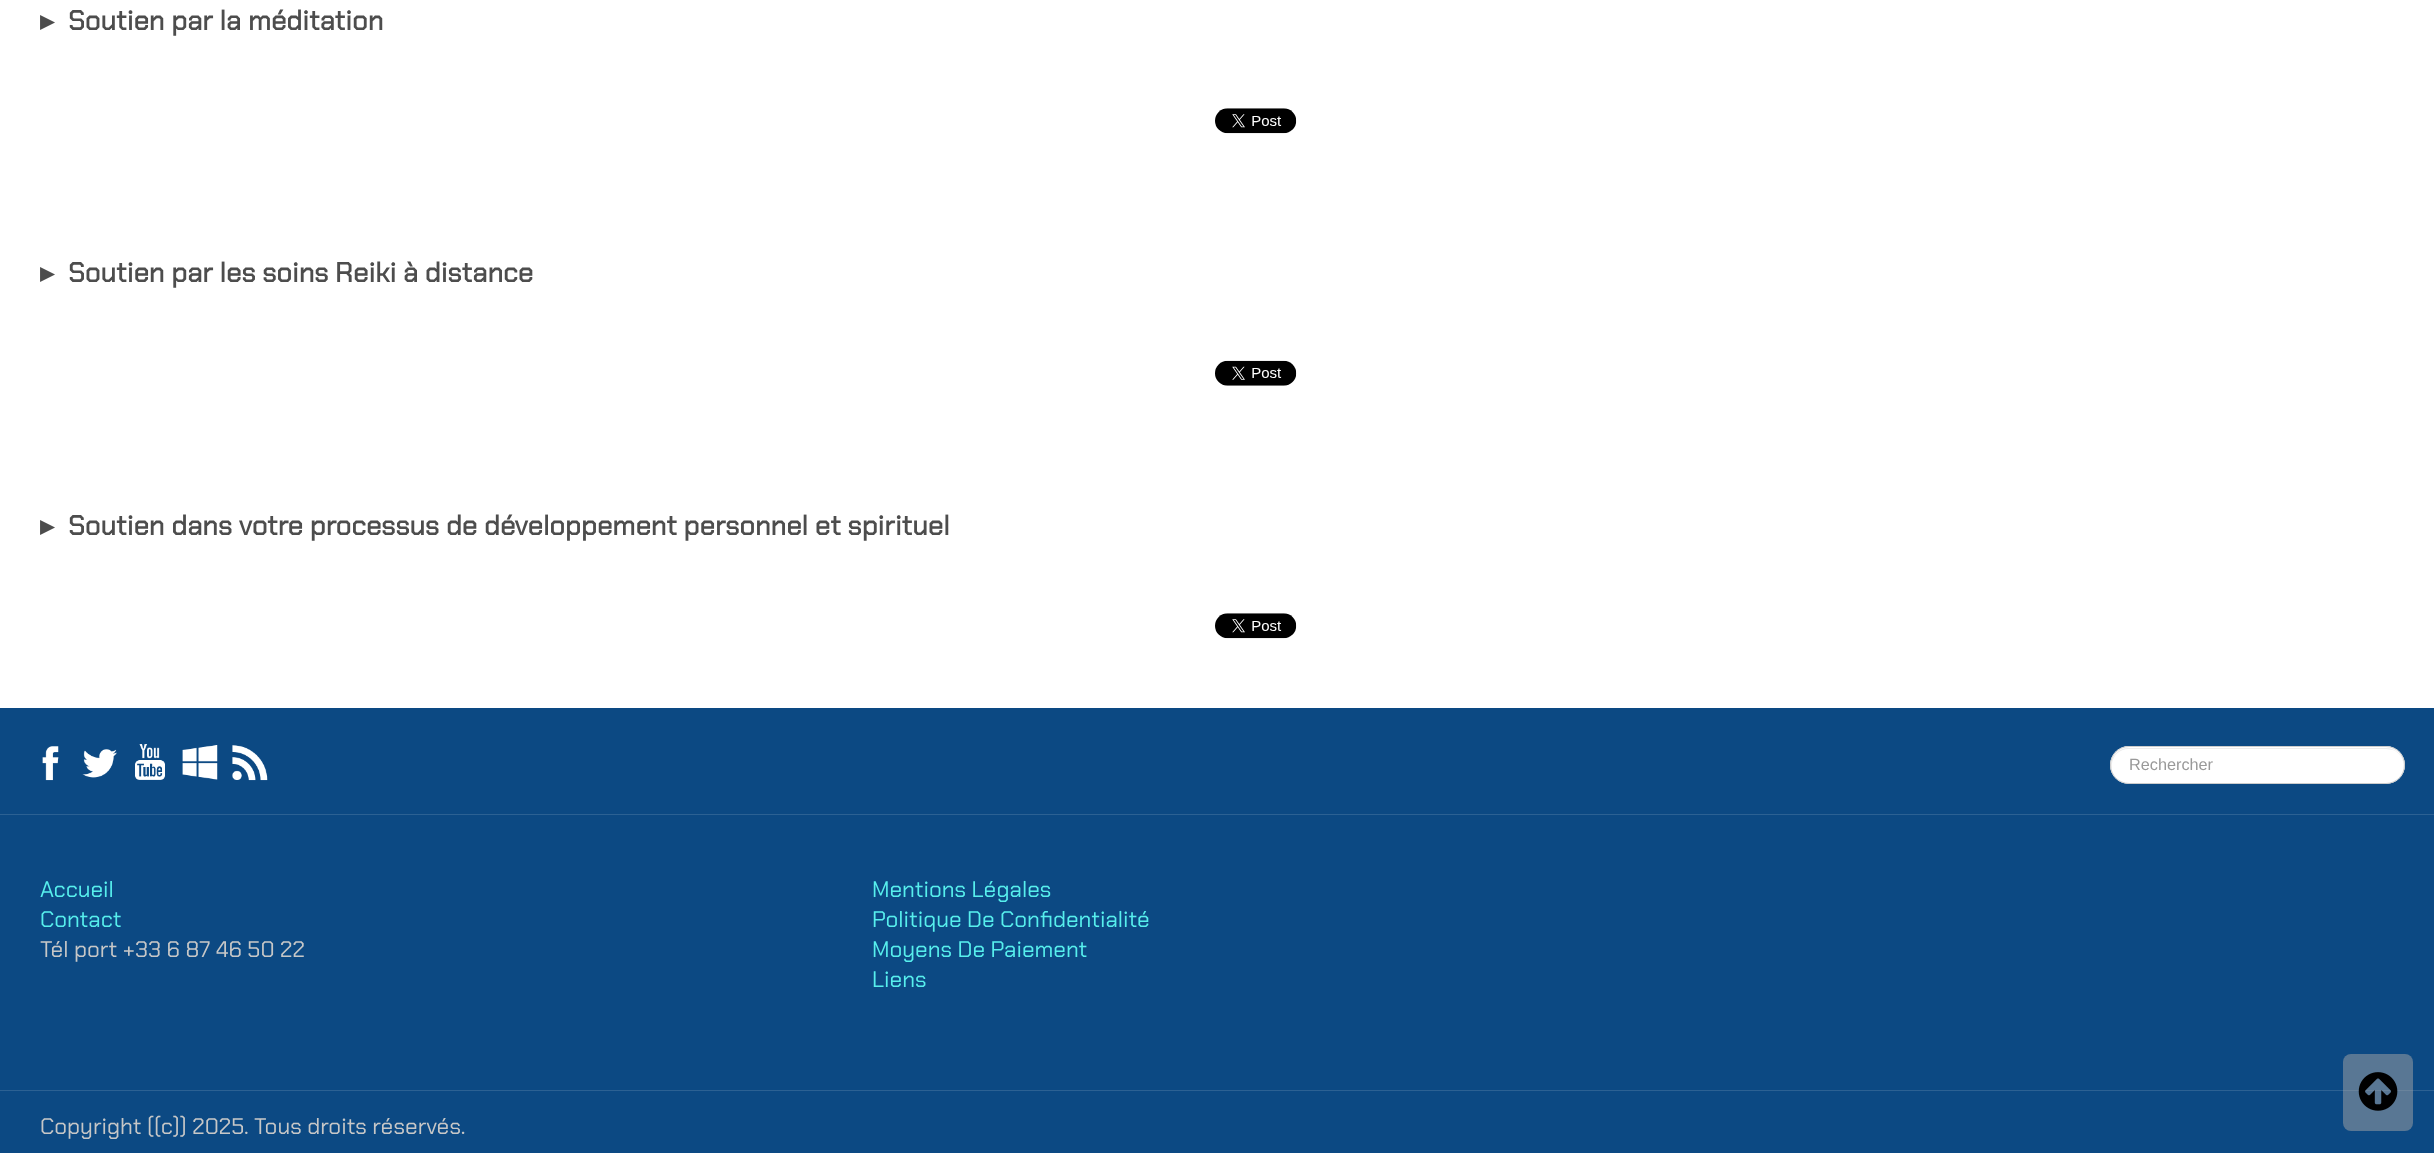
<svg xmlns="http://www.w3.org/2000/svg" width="2434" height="1153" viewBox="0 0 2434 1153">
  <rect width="100%" height="100%" fill="rgb(255,255,255)"/>
  <text x="40" y="30" font-family="DejaVu Sans" font-size="27.5" font-weight="bold" fill="rgb(77,77,77)">▸</text>
  <text x="68" y="30" font-family="Chakra Petch" font-size="27.5" font-weight="bold" fill="rgb(77,77,77)">Soutien par la méditation</text>
  <image x="1215" y="108" width="82" height="26" href="pic1.png"/>
  <text x="40" y="282" font-family="DejaVu Sans" font-size="27.5" font-weight="bold" fill="rgb(77,77,77)">▸</text>
  <text x="68" y="282" font-family="Chakra Petch" font-size="27.5" font-weight="bold" fill="rgb(77,77,77)">Soutien par les soins Reiki à distance</text>
  <image x="1215" y="360" width="82" height="26" href="pic2.png"/>
  <text x="40" y="535" font-family="DejaVu Sans" font-size="27.5" font-weight="bold" fill="rgb(77,77,77)">▸</text>
  <text x="68" y="535" font-family="Chakra Petch" font-size="27.5" font-weight="bold" fill="rgb(77,77,77)">Soutien dans votre processus de développement personnel et spirituel</text>
  <image x="1215" y="613" width="82" height="26" href="pic1.png"/>
  <rect x="0" y="708" width="2434" height="445" fill="rgb(12,73,131)"/>
  <image x="42" y="746" width="17" height="35" href="pic3.png"/>
  <image x="82" y="749" width="35" height="29" href="pic4.png"/>
  <image x="135" y="744" width="30" height="36" href="pic5.png"/>
  <image x="182" y="745" width="36" height="35" href="pic6.png"/>
  <image x="232" y="745" width="36" height="36" href="pic7.png"/>
  <rect x="2110" y="746" width="295" height="38" rx="19" fill="rgb(255,255,255)"/>
  <path d="M2129 749H2386L2393 750C2403 754 2406 766 2402 774C2403 772 2404 769 2404 766C2404 756 2396 748 2386 748H2128C2119 748 2111 756 2111 766C2111 769 2112 772 2113 774C2109 764 2114 749 2129 749Z" fill="rgb(236,236,236)"/>
  <rect x="2110.5" y="746.5" width="294" height="37" rx="18.5" fill="none" stroke="rgb(204,204,204)"/>
  <text x="2129" y="770" font-family="Liberation Sans" font-size="16.25" fill="rgb(153,153,153)">Rechercher</text>
  <rect x="0" y="814" width="2434" height="1" fill="rgb(44,97,147)"/>
  <rect x="0" y="1090" width="2434" height="1" fill="rgb(44,97,147)"/>
  <g font-family="Chakra Petch" font-size="22.5" fill="rgb(87,239,237)">
    <text>
      <tspan x="40" y="897">Accueil</tspan>
      <tspan x="40" y="927">Contact</tspan>
    </text>
  </g>
  <text x="40" y="957" font-family="Chakra Petch" font-size="22.5" fill="rgb(199,199,199)">Tél port +33 6 87 46 50 22</text>
  <g font-family="Chakra Petch" font-size="22.5" fill="rgb(87,239,237)">
    <text>
      <tspan x="872" y="897">Mentions Légales</tspan>
      <tspan x="872" y="927">Politique De Confidentialité</tspan>
      <tspan x="872" y="957">Moyens De Paiement</tspan>
      <tspan x="872" y="987">Liens</tspan>
    </text>
  </g>
  <text x="40" y="1134" font-family="Chakra Petch" font-size="22.5" fill="rgb(199,199,199)">Copyright ((c)) 2025. Tous droits réservés.</text>
  <rect x="2343" y="1054" width="70" height="77" rx="8" fill="rgba(165,165,165,0.5)"/>
  <image x="2358" y="1072" width="40" height="39" href="pic8.png"/>
</svg>
